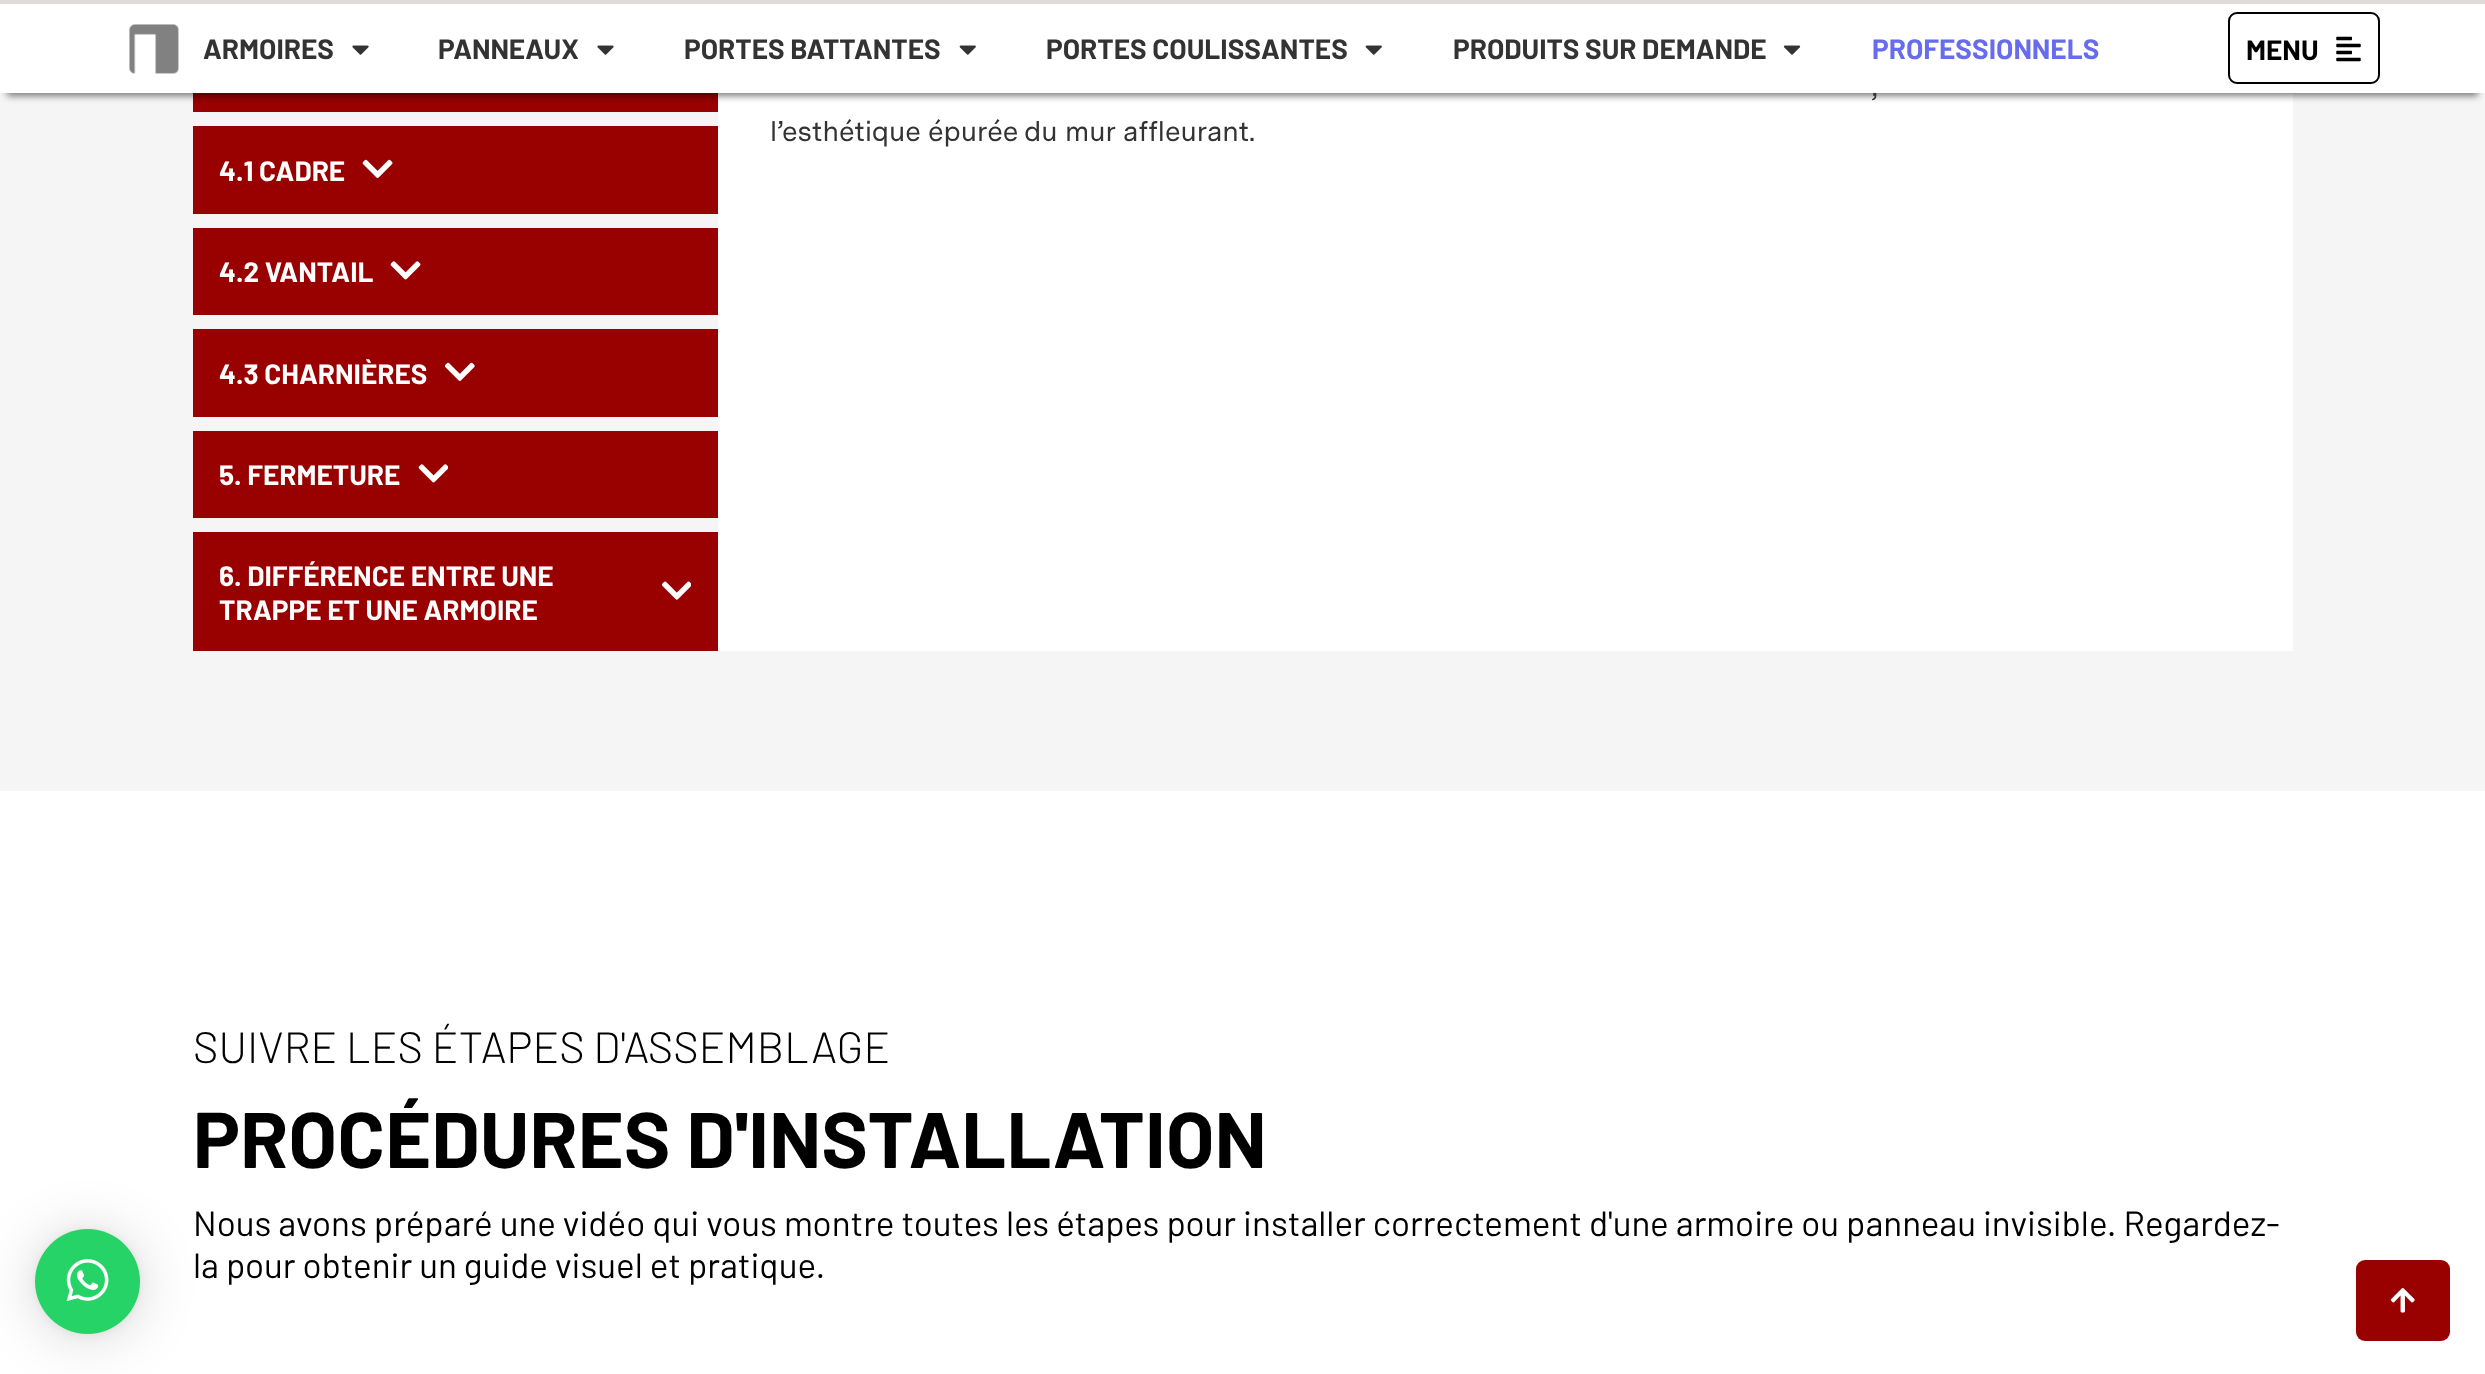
<svg xmlns="http://www.w3.org/2000/svg" width="2485" height="1374" viewBox="0 0 2485 1374">
  <rect width="100%" height="100%" fill="rgb(255,255,255)"/>
  <rect x="0" y="93" width="2485" height="698" fill="rgb(245,245,245)"/>
  <rect x="718" y="93" width="1575" height="558" fill="rgb(255,255,255)"/>
  <rect x="193" y="93" width="525" height="19" fill="rgb(153,0,0)"/>
  <rect x="7" y="18" width="2471" height="78" fill="rgba(0,0,0,0.5)" filter="blur(3.5px)"/>
  <text x="1871" y="96" font-family="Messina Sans" font-size="28" fill="rgb(51,51,51)">,</text>
  <rect x="0" y="11" width="2485" height="82" fill="rgb(255,255,255)"/>
  <rect x="0" y="0" width="2485" height="4" fill="rgb(224,219,219)"/>
  <image x="129" y="24" width="50" height="50" href="pic1.png"/>
  <text x="203" y="59" font-family="Barlow" font-size="28" font-weight="bold" fill="rgb(51,51,51)">ARMOIRES</text>
  <image x="352" y="45" width="17" height="10" href="pic2.png"/>
  <text x="438" y="59" font-family="Barlow" font-size="28" font-weight="bold" fill="rgb(51,51,51)">PANNEAUX</text>
  <image x="597" y="45" width="17" height="10" href="pic2.png"/>
  <text x="684" y="59" font-family="Barlow" font-size="28" font-weight="bold" fill="rgb(51,51,51)">PORTES BATTANTES</text>
  <image x="959" y="45" width="17" height="10" href="pic3.png"/>
  <text x="1046" y="59" font-family="Barlow" font-size="28" font-weight="bold" fill="rgb(51,51,51)">PORTES COULISSANTES</text>
  <image x="1365" y="45" width="17" height="10" href="pic3.png"/>
  <text x="1453" y="59" font-family="Barlow" font-size="28" font-weight="bold" fill="rgb(51,51,51)">PRODUITS SUR DEMANDE</text>
  <image x="1783" y="45" width="18" height="10" href="pic4.png"/>
  <text x="1872" y="59" font-family="Barlow" font-size="28" font-weight="bold" fill="rgb(103,107,238)">PROFESSIONNELS</text>
  <rect x="2229" y="13" width="150" height="70" rx="8" fill="none" stroke="rgb(0,0,0)" stroke-width="2"/>
  <text x="2246" y="60" font-family="Barlow" font-size="28" font-weight="bold" fill="rgb(0,0,0)">MENU</text>
  <image x="2336" y="36" width="25" height="26" href="pic5.png"/>
  <rect x="35" y="1232" width="105" height="105" rx="52.5" fill="rgba(0,0,0,0.16)" filter="blur(28px)"/>
  <rect x="35" y="1230" width="105" height="105" rx="52.5" fill="rgba(0,0,0,0.06)" filter="blur(5px)"/>
  <circle cx="87.5" cy="1281.5" r="52.5" fill="rgb(37,211,102)"/>
  <image x="66" y="1259" width="43" height="43" href="pic6.png"/>
  <g font-family="Messina Sans" font-size="28" fill="rgb(51,51,51)">
    <text x="770" y="141">l’</text>
    <text x="782" y="141">esthétique</text>
    <text x="928" y="141">épurée</text>
    <text x="1024" y="141">du mur</text>
    <text x="1123" y="141">affleurant.</text>
  </g>
  <rect x="193" y="126" width="525" height="88" fill="rgb(153,0,0)"/>
  <text x="219" y="181" font-family="Barlow" font-size="28" font-weight="bold" fill="rgb(255,255,255)">4.1 CADRE</text>
  <image x="362" y="159" width="31" height="19" href="pic7.png"/>
  <rect x="193" y="228" width="525" height="87" fill="rgb(153,0,0)"/>
  <text x="219" y="282" font-family="Barlow" font-size="28" font-weight="bold" fill="rgb(255,255,255)">4.2 VANTAIL</text>
  <image x="390" y="261" width="31" height="19" href="pic8.png"/>
  <rect x="193" y="329" width="525" height="88" fill="rgb(153,0,0)"/>
  <text x="219" y="384" font-family="Barlow" font-size="28" font-weight="bold" fill="rgb(255,255,255)">4.3 CHARNIÈRES</text>
  <image x="445" y="362" width="30" height="19" href="pic9.png"/>
  <rect x="193" y="431" width="525" height="87" fill="rgb(153,0,0)"/>
  <text x="219" y="485" font-family="Barlow" font-size="28" font-weight="bold" fill="rgb(255,255,255)">5. FERMETURE</text>
  <image x="418" y="464" width="30" height="19" href="pic10.png"/>
  <rect x="193" y="532" width="525" height="119" fill="rgb(153,0,0)"/>
  <g font-family="Barlow" font-size="28" font-weight="bold" fill="rgb(255,255,255)">
    <text>
      <tspan x="219" y="586">6. DIFFÉRENCE ENTRE UNE</tspan>
      <tspan x="219" y="620">TRAPPE ET UNE ARMOIRE</tspan>
    </text>
  </g>
  <image x="662" y="581" width="29" height="19" href="pic11.png"/>
  <text x="193" y="1063" font-family="Barlow" font-size="43.75" font-weight="300" fill="rgb(0,0,0)">SUIVRE LES ÉTAPES D'ASSEMBLAGE</text>
  <text x="193" y="1168" font-family="Barlow" font-size="78.75" font-weight="bold" fill="rgb(0,0,0)">PROCÉDURES D'INSTALLATION</text>
  <g font-family="Barlow" font-size="35" fill="rgb(0,0,0)">
    <text>
      <tspan x="193" y="1236">Nous avons préparé une vidéo qui vous montre toutes les étapes pour installer correctement d'une armoire ou panneau invisible. Regardez-</tspan>
      <tspan x="193" y="1278">la pour obtenir un guide visuel et pratique.</tspan>
    </text>
  </g>
  <rect x="2356" y="1260" width="94" height="81" rx="9" fill="rgb(153,0,0)"/>
  <image x="2390" y="1288" width="25" height="25" href="pic12.png"/>
</svg>
